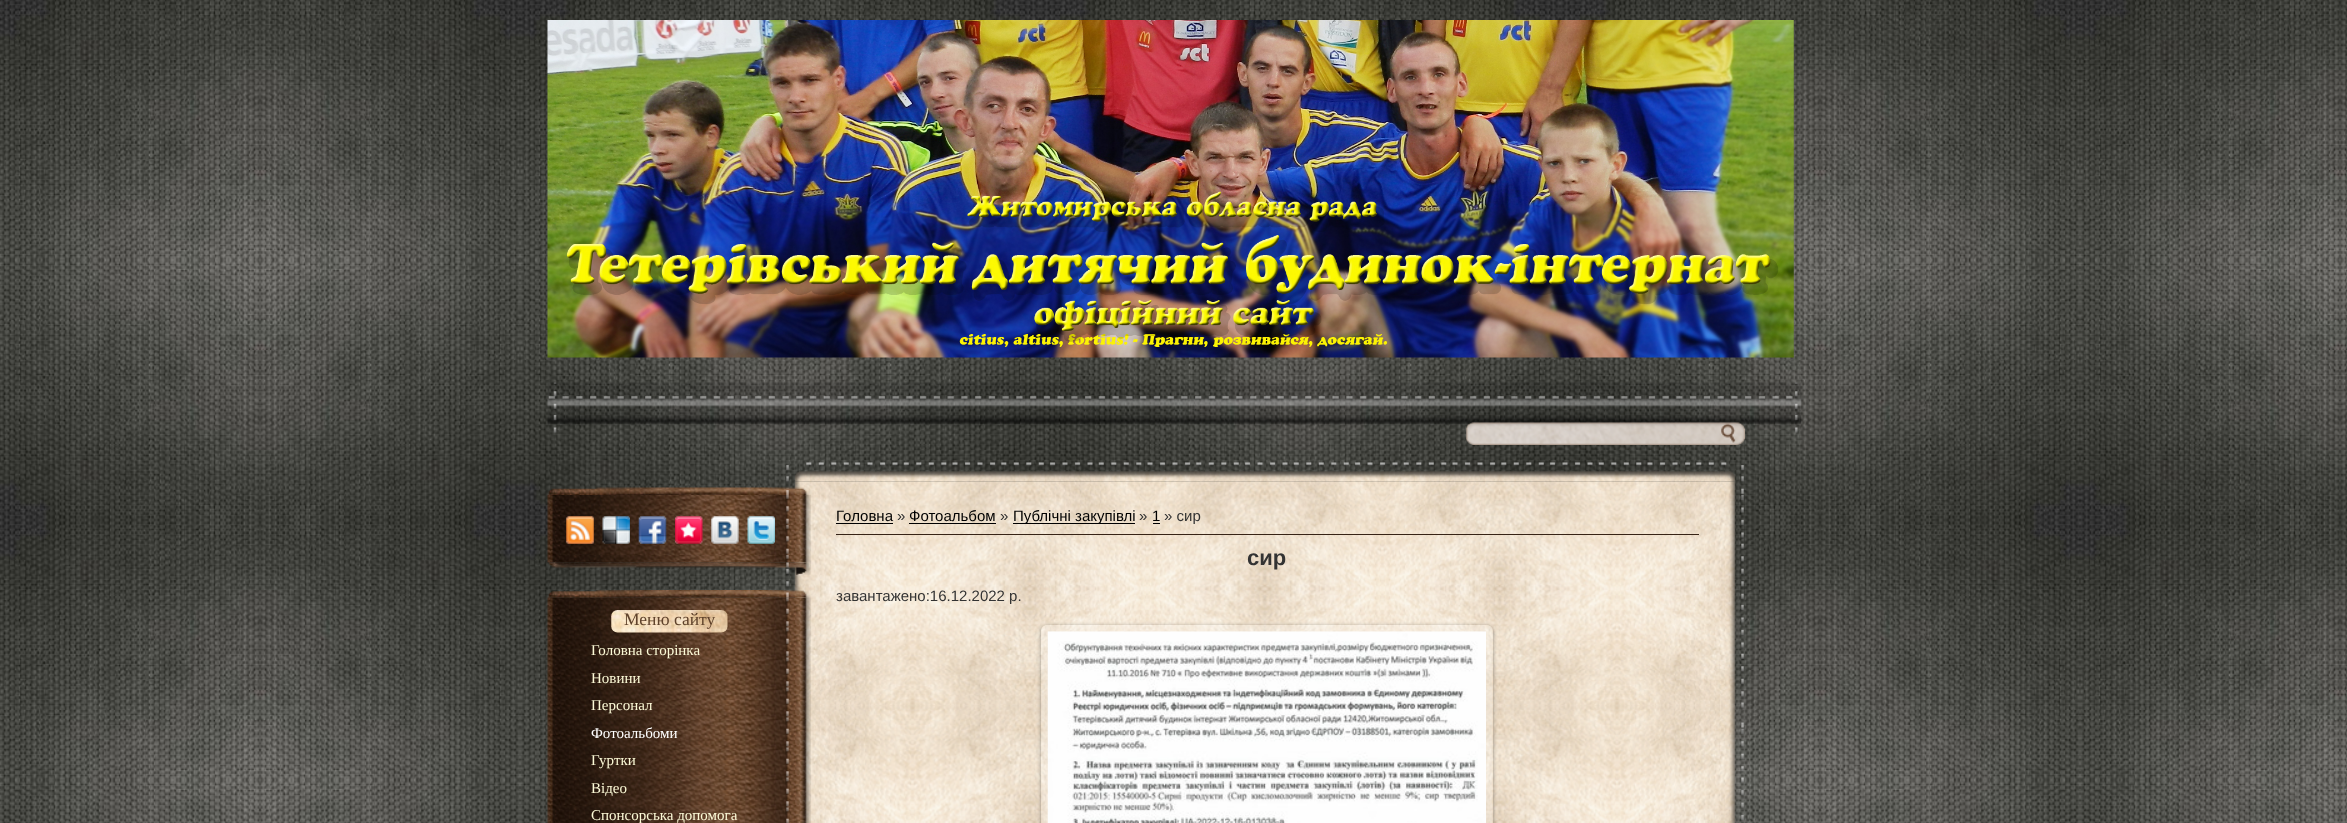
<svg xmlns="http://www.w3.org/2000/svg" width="2347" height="823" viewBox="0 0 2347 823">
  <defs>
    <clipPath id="clip1"><path d="M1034 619H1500V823H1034ZM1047 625H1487C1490.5 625 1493 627.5 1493 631V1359C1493 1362.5 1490.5 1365 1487 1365H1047C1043.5 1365 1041 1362.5 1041 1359V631C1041 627.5 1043.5 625 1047 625Z" clip-rule="evenodd"/></clipPath>
  </defs>
  <rect width="100%" height="100%" fill="rgb(255,255,255)"/>
  <image x="0" y="0" width="2347" height="823" href="pic1.png"/>
  <image x="547" y="20" width="1247" height="338" href="pic2.png"/>
  <image x="547" y="382" width="1255" height="51" href="pic3.png"/>
  <image x="1466" y="422" width="279" height="23" href="pic4.png"/>
  <image x="785" y="481" width="960" height="342" href="pic6.png"/>
  <image x="786" y="462" width="959" height="20" href="pic5.png"/>
  <text x="836" y="521" font-family="Liberation Sans" font-size="15" fill="rgb(0,0,0)">Головна</text>
  <rect x="836" y="523" width="57" height="1" fill="rgb(0,0,0)"/>
  <text x="897" y="521" font-family="Liberation Sans" font-size="15" fill="rgb(51,51,51)">»</text>
  <text x="909" y="521" font-family="Liberation Sans" font-size="15" fill="rgb(0,0,0)">Фотоальбом</text>
  <rect x="909" y="523" width="87" height="1" fill="rgb(0,0,0)"/>
  <text x="1000" y="521" font-family="Liberation Sans" font-size="15" fill="rgb(51,51,51)">»</text>
  <rect x="1013" y="523" width="122" height="1" fill="rgb(0,0,0)"/>
  <text x="1013" y="521" font-family="Liberation Sans" font-size="15" fill="rgb(0,0,0)">Публічні закупівлі</text>
  <text x="1139" y="521" font-family="Liberation Sans" font-size="15" fill="rgb(51,51,51)">»</text>
  <text x="1152" y="521" font-family="Liberation Sans" font-size="15" fill="rgb(0,0,0)">1</text>
  <rect x="1153" y="523" width="7" height="1" fill="rgb(0,0,0)"/>
  <text x="1164" y="521" font-family="Liberation Sans" font-size="15" fill="rgb(51,51,51)">» сир</text>
  <rect x="836" y="534" width="863" height="1" fill="rgb(54,35,22)"/>
  <text x="1247" y="565" font-family="Liberation Sans" font-size="22" font-weight="bold" fill="rgb(51,51,51)">сир</text>
  <text x="836" y="601" font-family="Liberation Sans" font-size="15" fill="rgb(51,51,51)">завантажено:16.12.2022 р.</text>
  <g clip-path="url(#clip1)">
    <rect x="1041" y="626" width="452" height="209" rx="6" fill="rgba(0,0,0,0.37)" filter="blur(2px)"/>
  </g>
  <image x="1041" y="625" width="452" height="198" href="pic7.png"/>
  <image x="1047" y="631" width="439" height="192" href="pic8.png"/>
  <image x="547" y="487" width="264" height="8" href="pic9.png"/>
  <image x="547" y="495" width="264" height="68" href="pic10.png"/>
  <image x="566" y="516" width="28" height="28" href="pic11.png"/>
  <image x="602" y="516" width="28" height="28" href="pic12.png"/>
  <image x="638" y="516" width="29" height="28" href="pic13.png"/>
  <image x="675" y="516" width="28" height="28" href="pic14.png"/>
  <image x="711" y="516" width="28" height="28" href="pic15.png"/>
  <image x="747" y="516" width="28" height="28" href="pic16.png"/>
  <image x="549" y="562" width="262" height="13" href="pic17.png"/>
  <image x="547" y="597" width="264" height="226" href="pic19.png"/>
  <image x="548" y="590" width="263" height="8" href="pic18.png"/>
  <image x="611" y="610" width="117" height="23" href="pic20.png"/>
  <text x="624" y="625" font-family="Liberation Serif" font-size="17.5" fill="rgb(95,66,43)">Меню сайту</text>
  <g font-family="Liberation Serif" font-size="15" fill="rgb(252,250,215)">
    <text>
      <tspan x="591" y="655">Головна сторінка</tspan>
      <tspan x="591" y="683">Новини</tspan>
      <tspan x="591" y="710">Персонал</tspan>
    </text>
  </g>
  <text x="591" y="738" font-family="Liberation Serif" font-size="15" fill="rgb(255,255,255)">Фотоальбоми</text>
  <g font-family="Liberation Serif" font-size="15" fill="rgb(252,250,215)">
    <text>
      <tspan x="591" y="765">Гуртки</tspan>
      <tspan x="591" y="793">Відео</tspan>
      <tspan x="591" y="820">Спонсорська допомога</tspan>
    </text>
  </g>
</svg>
